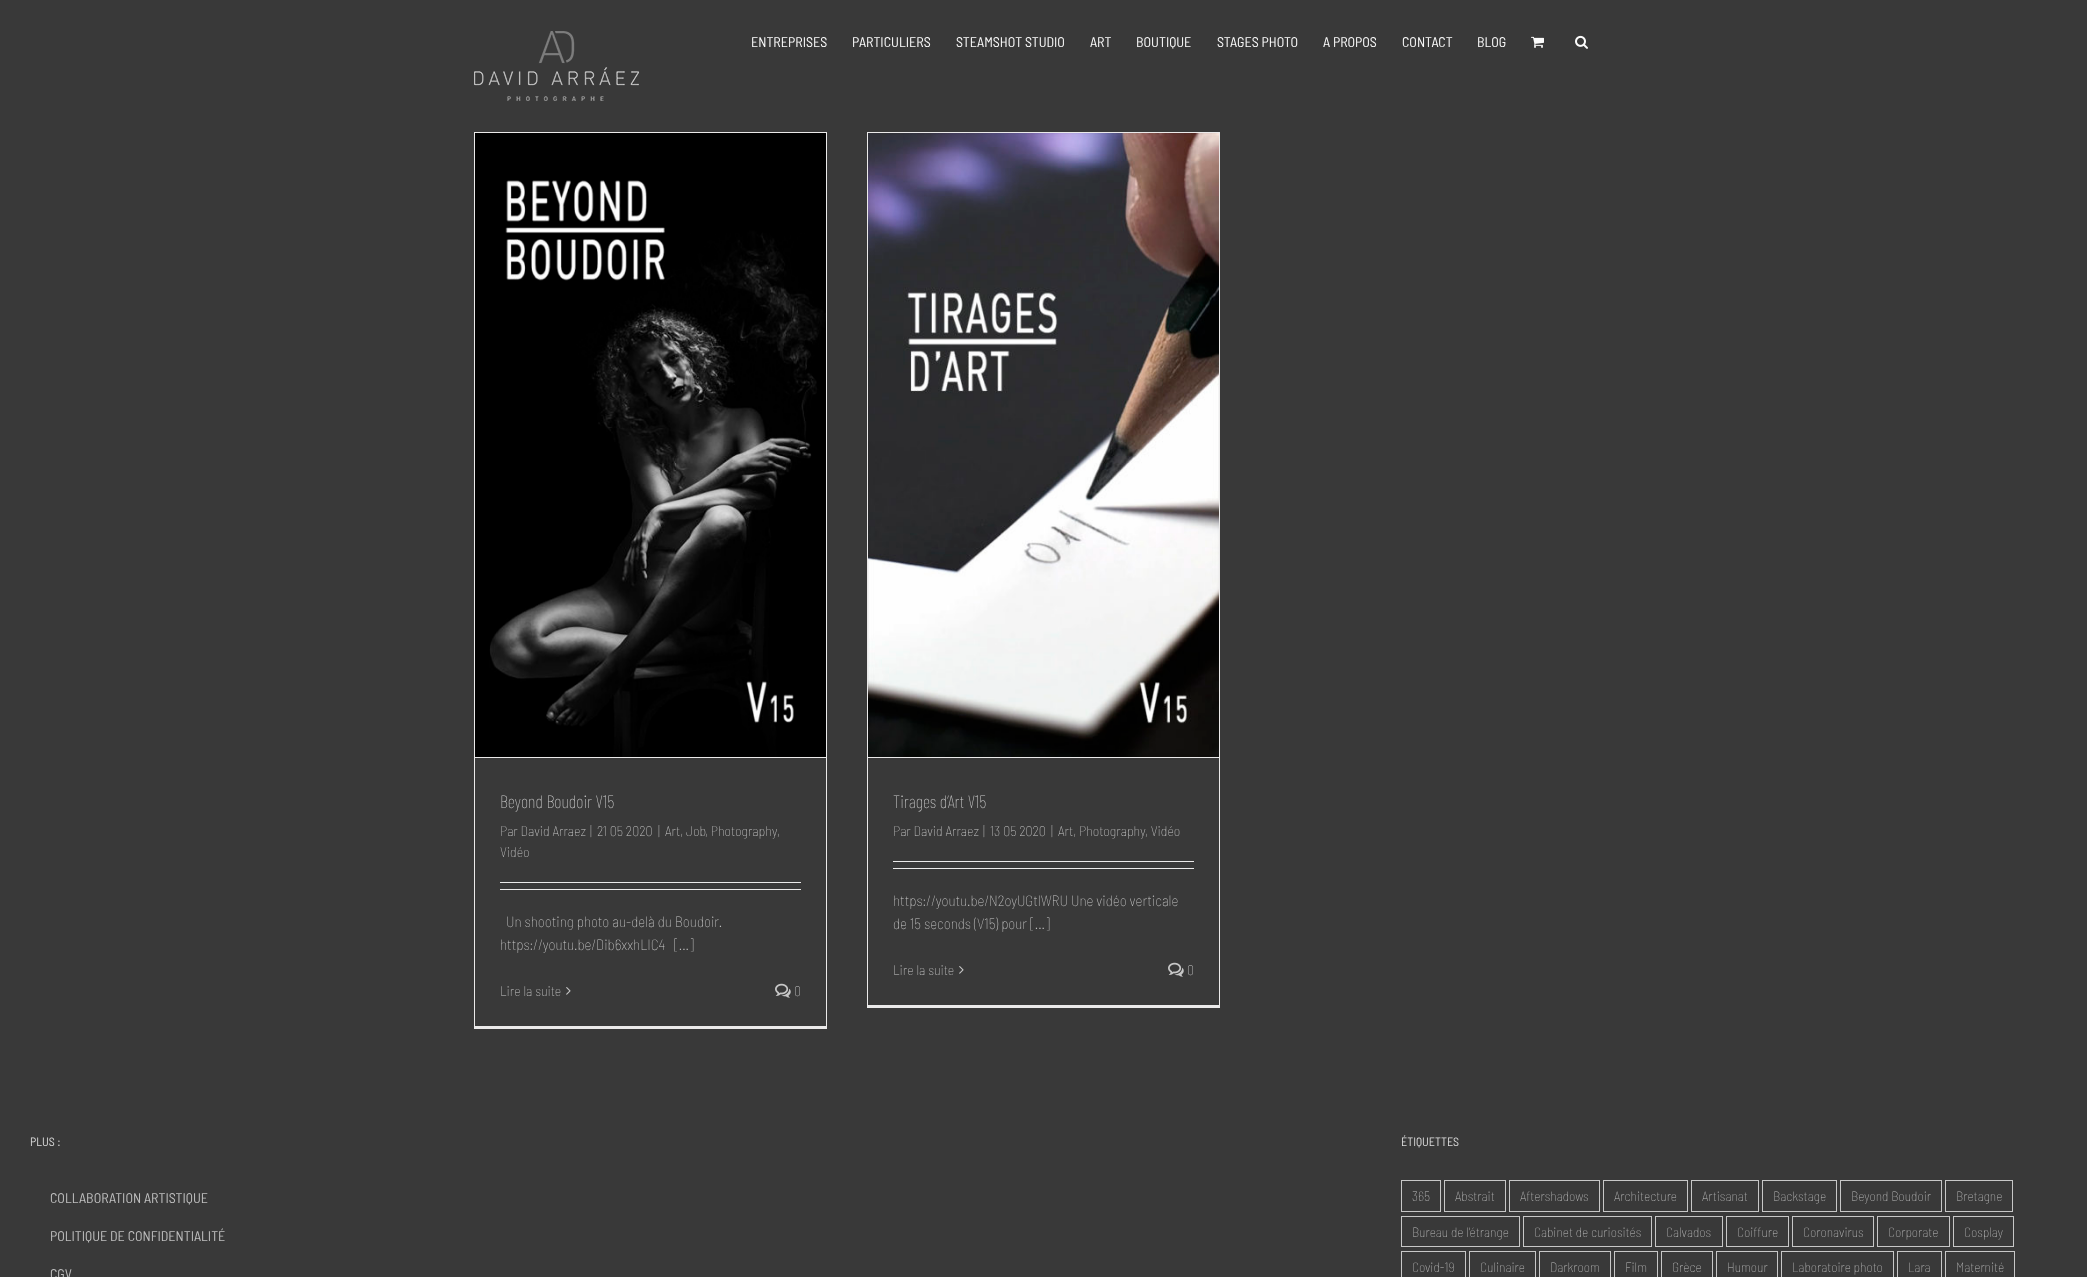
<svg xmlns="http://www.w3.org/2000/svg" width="2087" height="1277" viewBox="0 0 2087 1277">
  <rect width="100%" height="100%" fill="rgb(57,57,57)"/>
  <image x="474" y="31" width="165" height="70" href="pic1.png"/>
  <g font-family="Barlow Semi Condensed" font-size="14" fill="rgb(252,252,252)">
    <text x="751" y="47">ENTREPRISES</text>
    <text x="852" y="47">PARTICULIERS</text>
    <text x="956" y="47">STEAMSHOT STUDIO</text>
    <text x="1090" y="47">ART</text>
    <text x="1136" y="47">BOUTIQUE</text>
    <text x="1217" y="47">STAGES PHOTO</text>
    <text x="1323" y="47">A PROPOS</text>
    <text x="1402" y="47">CONTACT</text>
    <text x="1477" y="47">BLOG</text>
  </g>
  <image x="1531" y="36" width="13" height="12" href="pic2.png"/>
  <image x="1575" y="35" width="13" height="14" href="pic3.png"/>
  <rect x="474" y="132" width="353" height="1" fill="rgb(235,234,234)"/>
  <rect x="826" y="132" width="1" height="897" fill="rgb(235,234,234)"/>
  <rect x="474" y="1026" width="353" height="3" fill="rgb(235,234,234)"/>
  <rect x="474" y="132" width="1" height="897" fill="rgb(235,234,234)"/>
  <rect x="475" y="757" width="351" height="1" fill="rgb(235,234,234)"/>
  <image x="475" y="133" width="351" height="624" href="pic4.png"/>
  <text x="500" y="808" font-family="Barlow Condensed" font-size="18" font-weight="100" fill="rgb(199,199,199)">Beyond Boudoir V15</text>
  <g font-family="Barlow Semi Condensed" font-size="14" font-weight="100" fill="rgb(199,199,199)">
    <text x="500" y="836">Par David Arraez</text>
    <text x="590" y="836">|</text>
    <text x="597" y="836">21 05 2020</text>
    <text x="658" y="836">|</text>
    <text x="665" y="836">Art, Job</text>
    <text x="705" y="836">, Photography</text>
    <text x="777" y="836">,</text>
    <text x="500" y="857">Vidéo</text>
  </g>
  <rect x="500" y="882" width="301" height="1" fill="rgb(235,234,234)"/>
  <rect x="500" y="889" width="301" height="1" fill="rgb(235,234,234)"/>
  <g font-family="Barlow Semi Condensed" font-size="15" font-weight="100" fill="rgb(199,199,199)">
    <text x="506" y="927">Un shooting photo au-delà du Boudoir.</text>
    <text x="500" y="950">https://youtu.be/Dib6xxhLIC4</text>
    <text x="674" y="950">[...]</text>
  </g>
  <text x="500" y="996" font-family="Barlow Semi Condensed" font-size="14" font-weight="100" fill="rgb(199,199,199)">Lire la suite</text>
  <image x="566" y="987" width="5" height="8" href="pic5.png"/>
  <image x="775" y="983" width="16" height="15" href="pic6.png"/>
  <text x="794" y="996" font-family="Barlow Semi Condensed" font-size="14" font-weight="100" fill="rgb(199,199,199)">0</text>
  <rect x="867" y="132" width="353" height="1" fill="rgb(235,234,234)"/>
  <rect x="1219" y="132" width="1" height="876" fill="rgb(235,234,234)"/>
  <rect x="867" y="1005" width="353" height="3" fill="rgb(235,234,234)"/>
  <rect x="867" y="132" width="1" height="876" fill="rgb(235,234,234)"/>
  <rect x="868" y="757" width="351" height="1" fill="rgb(235,234,234)"/>
  <image x="868" y="133" width="351" height="624" href="pic7.png"/>
  <text x="893" y="808" font-family="Barlow Condensed" font-size="18" font-weight="100" fill="rgb(199,199,199)">Tirages d’Art V15</text>
  <g font-family="Barlow Semi Condensed" font-size="14" font-weight="100" fill="rgb(199,199,199)">
    <text x="893" y="836">Par David Arraez</text>
    <text x="983" y="836">|</text>
    <text x="990" y="836">13 05 2020</text>
    <text x="1051" y="836">|</text>
    <text x="1058" y="836">Art, Photography</text>
    <text x="1145" y="836">, Vidéo</text>
  </g>
  <rect x="893" y="861" width="301" height="1" fill="rgb(235,234,234)"/>
  <rect x="893" y="868" width="301" height="1" fill="rgb(235,234,234)"/>
  <g font-family="Barlow Semi Condensed" font-size="15" font-weight="100" fill="rgb(199,199,199)">
    <text>
      <tspan x="893" y="906">https://youtu.be/N2oyUGtlWRU Une vidéo verticale</tspan>
      <tspan x="893" y="929">de 15 seconds (V15) pour [...]</tspan>
    </text>
  </g>
  <text x="893" y="975" font-family="Barlow Semi Condensed" font-size="14" font-weight="100" fill="rgb(199,199,199)">Lire la suite</text>
  <image x="959" y="966" width="5" height="8" href="pic5.png"/>
  <image x="1168" y="962" width="16" height="15" href="pic6.png"/>
  <text x="1187" y="975" font-family="Barlow Semi Condensed" font-size="14" font-weight="100" fill="rgb(199,199,199)">0</text>
  <text x="30" y="1146" font-family="Barlow Semi Condensed" font-size="12" fill="rgb(221,221,221)">PLUS :</text>
  <g font-family="Barlow Semi Condensed" font-size="14" fill="rgb(191,191,191)">
    <text x="50" y="1203">COLLABORATION ARTISTIQUE</text>
    <text x="50" y="1241">POLITIQUE DE CONFIDENTIALITÉ</text>
    <text x="50" y="1279">CGV</text>
  </g>
  <text x="1401" y="1146" font-family="Barlow Semi Condensed" font-size="12" fill="rgb(221,221,221)">ÉTIQUETTES</text>
  <rect x="1401.5" y="1180.5" width="39" height="31" fill="none" stroke="rgb(199,199,199)"/>
  <text x="1412" y="1201" font-family="Barlow Semi Condensed" font-size="13.5" font-weight="100" fill="rgb(191,191,191)">365</text>
  <rect x="1444.5" y="1180.5" width="61" height="31" fill="none" stroke="rgb(199,199,199)"/>
  <text x="1455" y="1201" font-family="Barlow Semi Condensed" font-size="13.5" font-weight="100" fill="rgb(191,191,191)">Abstrait</text>
  <rect x="1509.5" y="1180.5" width="90" height="31" fill="none" stroke="rgb(199,199,199)"/>
  <text x="1520" y="1201" font-family="Barlow Semi Condensed" font-size="13.5" font-weight="100" fill="rgb(191,191,191)">Aftershadows</text>
  <rect x="1603.5" y="1180.5" width="84" height="31" fill="none" stroke="rgb(199,199,199)"/>
  <text x="1614" y="1201" font-family="Barlow Semi Condensed" font-size="13.5" font-weight="100" fill="rgb(191,191,191)">Architecture</text>
  <rect x="1691.5" y="1180.5" width="67" height="31" fill="none" stroke="rgb(199,199,199)"/>
  <text x="1702" y="1201" font-family="Barlow Semi Condensed" font-size="13.5" font-weight="100" fill="rgb(191,191,191)">Artisanat</text>
  <rect x="1762.5" y="1180.5" width="74" height="31" fill="none" stroke="rgb(199,199,199)"/>
  <text x="1773" y="1201" font-family="Barlow Semi Condensed" font-size="13.5" font-weight="100" fill="rgb(191,191,191)">Backstage</text>
  <rect x="1840.5" y="1180.5" width="101" height="31" fill="none" stroke="rgb(199,199,199)"/>
  <text x="1851" y="1201" font-family="Barlow Semi Condensed" font-size="13.5" font-weight="100" fill="rgb(191,191,191)">Beyond Boudoir</text>
  <rect x="1945.5" y="1180.5" width="67" height="31" fill="none" stroke="rgb(199,199,199)"/>
  <text x="1956" y="1201" font-family="Barlow Semi Condensed" font-size="13.5" font-weight="100" fill="rgb(191,191,191)">Bretagne</text>
  <rect x="1401.5" y="1216.5" width="118" height="30" fill="none" stroke="rgb(199,199,199)"/>
  <text x="1412" y="1237" font-family="Barlow Semi Condensed" font-size="13.5" font-weight="100" fill="rgb(191,191,191)">Bureau de l'étrange</text>
  <rect x="1523.5" y="1216.5" width="128" height="30" fill="none" stroke="rgb(199,199,199)"/>
  <text x="1534" y="1237" font-family="Barlow Semi Condensed" font-size="13.5" font-weight="100" fill="rgb(191,191,191)">Cabinet de curiosités</text>
  <rect x="1655.5" y="1216.5" width="67" height="30" fill="none" stroke="rgb(199,199,199)"/>
  <text x="1666" y="1237" font-family="Barlow Semi Condensed" font-size="13.5" font-weight="100" fill="rgb(191,191,191)">Calvados</text>
  <rect x="1726.5" y="1216.5" width="62" height="30" fill="none" stroke="rgb(199,199,199)"/>
  <text x="1737" y="1237" font-family="Barlow Semi Condensed" font-size="13.5" font-weight="100" fill="rgb(191,191,191)">Coiffure</text>
  <rect x="1792.5" y="1216.5" width="81" height="30" fill="none" stroke="rgb(199,199,199)"/>
  <text x="1803" y="1237" font-family="Barlow Semi Condensed" font-size="13.5" font-weight="100" fill="rgb(191,191,191)">Coronavirus</text>
  <rect x="1877.5" y="1216.5" width="72" height="30" fill="none" stroke="rgb(199,199,199)"/>
  <text x="1888" y="1237" font-family="Barlow Semi Condensed" font-size="13.5" font-weight="100" fill="rgb(191,191,191)">Corporate</text>
  <rect x="1953.5" y="1216.5" width="60" height="30" fill="none" stroke="rgb(199,199,199)"/>
  <text x="1964" y="1237" font-family="Barlow Semi Condensed" font-size="13.5" font-weight="100" fill="rgb(191,191,191)">Cosplay</text>
  <rect x="1401.5" y="1251.5" width="64" height="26" fill="none" stroke="rgb(199,199,199)"/>
  <text x="1412" y="1272" font-family="Barlow Semi Condensed" font-size="13.5" font-weight="100" fill="rgb(191,191,191)">Covid-19</text>
  <rect x="1469.5" y="1251.5" width="66" height="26" fill="none" stroke="rgb(199,199,199)"/>
  <text x="1480" y="1272" font-family="Barlow Semi Condensed" font-size="13.5" font-weight="100" fill="rgb(191,191,191)">Culinaire</text>
  <rect x="1539.5" y="1251.5" width="71" height="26" fill="none" stroke="rgb(199,199,199)"/>
  <text x="1550" y="1272" font-family="Barlow Semi Condensed" font-size="13.5" font-weight="100" fill="rgb(191,191,191)">Darkroom</text>
  <rect x="1614.5" y="1251.5" width="43" height="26" fill="none" stroke="rgb(199,199,199)"/>
  <text x="1625" y="1272" font-family="Barlow Semi Condensed" font-size="13.5" font-weight="100" fill="rgb(191,191,191)">Film</text>
  <rect x="1661.5" y="1251.5" width="51" height="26" fill="none" stroke="rgb(199,199,199)"/>
  <text x="1672" y="1272" font-family="Barlow Semi Condensed" font-size="13.5" font-weight="100" fill="rgb(191,191,191)">Grèce</text>
  <rect x="1716.5" y="1251.5" width="61" height="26" fill="none" stroke="rgb(199,199,199)"/>
  <text x="1727" y="1272" font-family="Barlow Semi Condensed" font-size="13.5" font-weight="100" fill="rgb(191,191,191)">Humour</text>
  <rect x="1781.5" y="1251.5" width="112" height="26" fill="none" stroke="rgb(199,199,199)"/>
  <text x="1792" y="1272" font-family="Barlow Semi Condensed" font-size="13.5" font-weight="100" fill="rgb(191,191,191)">Laboratoire photo</text>
  <rect x="1897.5" y="1251.5" width="44" height="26" fill="none" stroke="rgb(199,199,199)"/>
  <text x="1908" y="1272" font-family="Barlow Semi Condensed" font-size="13.5" font-weight="100" fill="rgb(191,191,191)">Lara</text>
  <rect x="1945.5" y="1251.5" width="69" height="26" fill="none" stroke="rgb(199,199,199)"/>
  <text x="1956" y="1272" font-family="Barlow Semi Condensed" font-size="13.5" font-weight="100" fill="rgb(191,191,191)">Maternité</text>
</svg>
